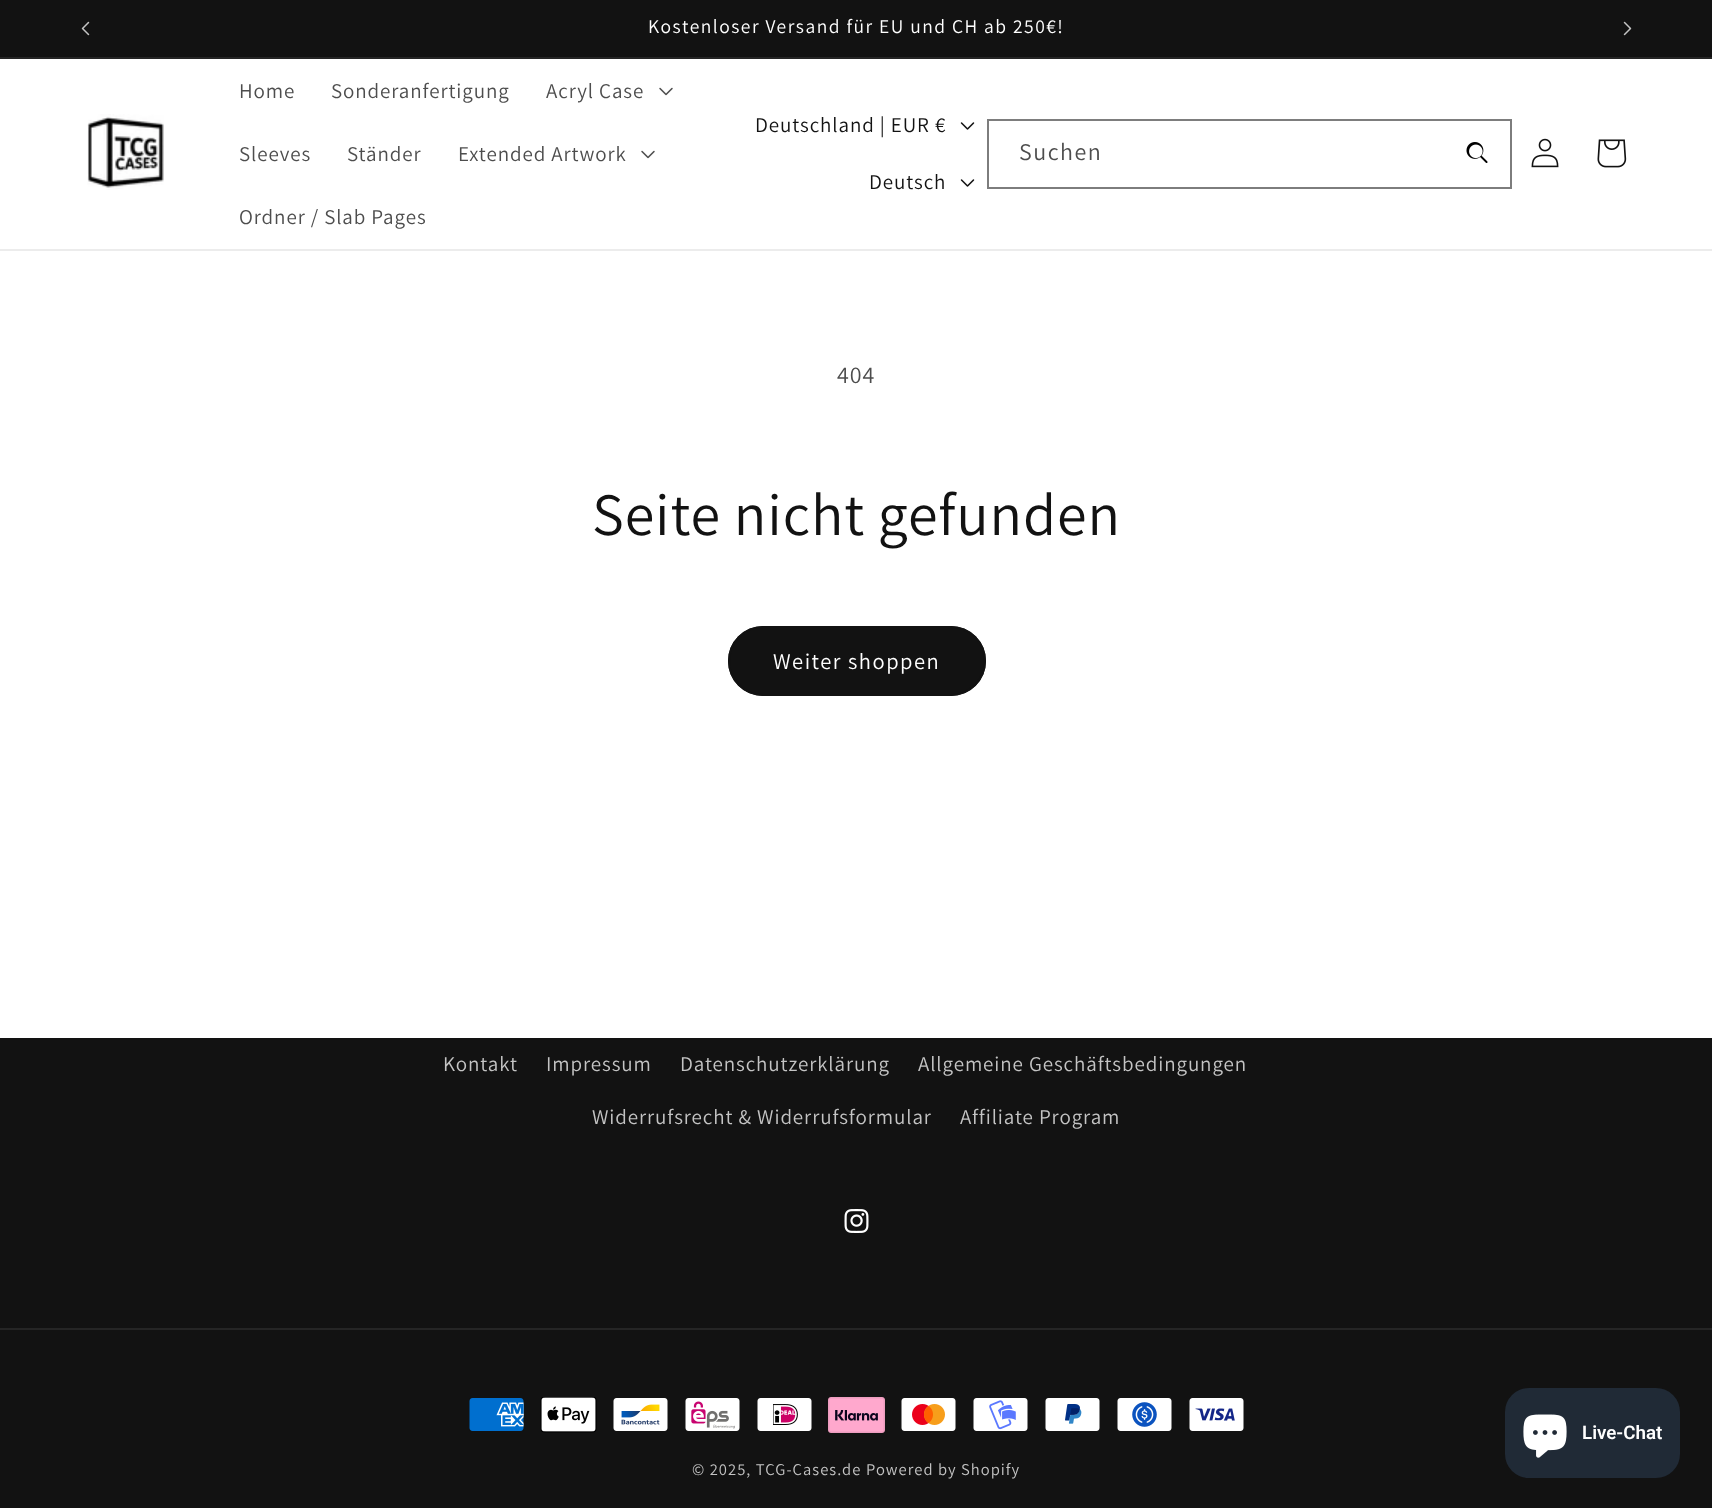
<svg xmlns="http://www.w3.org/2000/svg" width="1712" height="1508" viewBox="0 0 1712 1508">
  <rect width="100%" height="100%" fill="rgb(255,255,255)"/>
  <rect x="0" y="0" width="1712" height="57" fill="rgb(18,18,18)"/>
  <rect x="0" y="57" width="1712" height="2" fill="rgb(37,37,37)"/>
  <image x="81" y="21" width="9" height="15" href="pic1.png"/>
  <text x="648" y="33" font-family="Assistant" font-size="19.5" letter-spacing="1.5" fill="rgb(255,255,255)">Kostenloser Versand für EU und CH ab 250€!</text>
  <image x="1623" y="21" width="9" height="15" href="pic2.png"/>
  <rect x="0" y="249" width="1712" height="2" fill="rgb(236,236,236)"/>
  <image x="87" y="114" width="77" height="76" href="pic3.png"/>
  <g font-family="Assistant" font-size="21" letter-spacing="0.9" fill="rgb(77,77,77)">
    <text x="239" y="98">Home</text>
    <text x="331" y="98">Sonderanfertigung</text>
    <text x="546" y="98">Acryl Case</text>
  </g>
  <image x="659" y="87" width="14" height="9" href="pic4.png"/>
  <g font-family="Assistant" font-size="21" letter-spacing="0.9" fill="rgb(77,77,77)">
    <text x="239" y="161">Sleeves</text>
    <text x="347" y="161">Ständer</text>
    <text x="458" y="161">Extended Artwork</text>
  </g>
  <image x="641" y="150" width="14" height="9" href="pic4.png"/>
  <text x="239" y="224" font-family="Assistant" font-size="21" letter-spacing="0.9" fill="rgb(77,77,77)">Ordner / Slab Pages</text>
  <text x="755" y="132" font-family="Assistant" font-size="21" letter-spacing="0.9" fill="rgb(18,18,18)">Deutschland | EUR €</text>
  <image x="960" y="122" width="15" height="8" href="pic5.png"/>
  <text x="869" y="189" font-family="Assistant" font-size="21" letter-spacing="0.9" fill="rgb(18,18,18)">Deutsch</text>
  <image x="960" y="179" width="15" height="8" href="pic5.png"/>
  <image x="1466" y="142" width="22" height="21" href="pic6.png"/>
  <rect x="988" y="120" width="523" height="68" fill="none" stroke="rgb(125,125,125)" stroke-width="2"/>
  <text x="1019" y="160" font-family="Assistant" font-size="24" letter-spacing="1.5" fill="rgb(77,77,77)">Suchen</text>
  <image x="1531" y="138" width="28" height="30" href="pic7.png"/>
  <image x="1597" y="139" width="30" height="29" href="pic8.png"/>
  <text x="837" y="383" font-family="Assistant" font-size="24" letter-spacing="0.9" fill="rgb(77,77,77)">404</text>
  <text x="592" y="535" font-family="Assistant" font-size="60" letter-spacing="0.9" fill="rgb(18,18,18)">Seite nicht gefunden</text>
  <rect x="728" y="626" width="258" height="70" rx="35" fill="rgb(18,18,18)"/>
  <rect x="729" y="627" width="256" height="68" rx="34" fill="none" stroke="rgb(18,18,18)" stroke-width="2"/>
  <text x="773" y="669" font-family="Assistant" font-size="22.5" letter-spacing="1.5" fill="rgb(255,255,255)">Weiter shoppen</text>
  <rect x="0" y="1038" width="1712" height="470" fill="rgb(18,18,18)"/>
  <g font-family="Assistant" font-size="21" letter-spacing="0.9" fill="rgb(196,196,196)">
    <text x="443" y="1071">Kontakt</text>
    <text x="546" y="1071">Impressum</text>
    <text x="680" y="1071">Datenschutzerklärung</text>
    <text x="918" y="1071">Allgemeine Geschäftsbedingungen</text>
    <text x="592" y="1124">Widerrufsrecht &amp; Widerrufsformular</text>
    <text x="960" y="1124">Affiliate Program</text>
  </g>
  <image x="844" y="1209" width="25" height="24" href="pic9.png"/>
  <rect x="0" y="1328" width="1712" height="2" fill="rgb(37,37,37)"/>
  <image x="469" y="1398" width="55" height="33" href="pic10.png"/>
  <image x="540" y="1397" width="57" height="36" href="pic11.png"/>
  <image x="613" y="1398" width="55" height="33" href="pic12.png"/>
  <image x="685" y="1398" width="55" height="33" href="pic13.png"/>
  <image x="757" y="1398" width="55" height="33" href="pic14.png"/>
  <image x="828" y="1397" width="57" height="36" href="pic15.png"/>
  <image x="901" y="1398" width="55" height="33" href="pic16.png"/>
  <image x="973" y="1398" width="55" height="33" href="pic17.png"/>
  <image x="1045" y="1398" width="55" height="33" href="pic18.png"/>
  <image x="1117" y="1398" width="55" height="33" href="pic19.png"/>
  <image x="1189" y="1398" width="55" height="33" href="pic20.png"/>
  <g font-family="Assistant" font-size="16.5" letter-spacing="1.05" fill="rgb(196,196,196)">
    <text x="692" y="1475">© 2025, TCG-Cases.de</text>
    <text x="866" y="1475">Powered by Shopify</text>
  </g>
  <rect x="1505" y="1388" width="175" height="90" rx="24" fill="rgb(32,42,54)"/>
  <image x="1523" y="1414" width="44" height="44" href="pic21.png"/>
  <text x="1582" y="1439" font-family="Roboto" font-size="18.75" font-weight="600" fill="rgb(255,255,255)">Live-Chat</text>
</svg>
